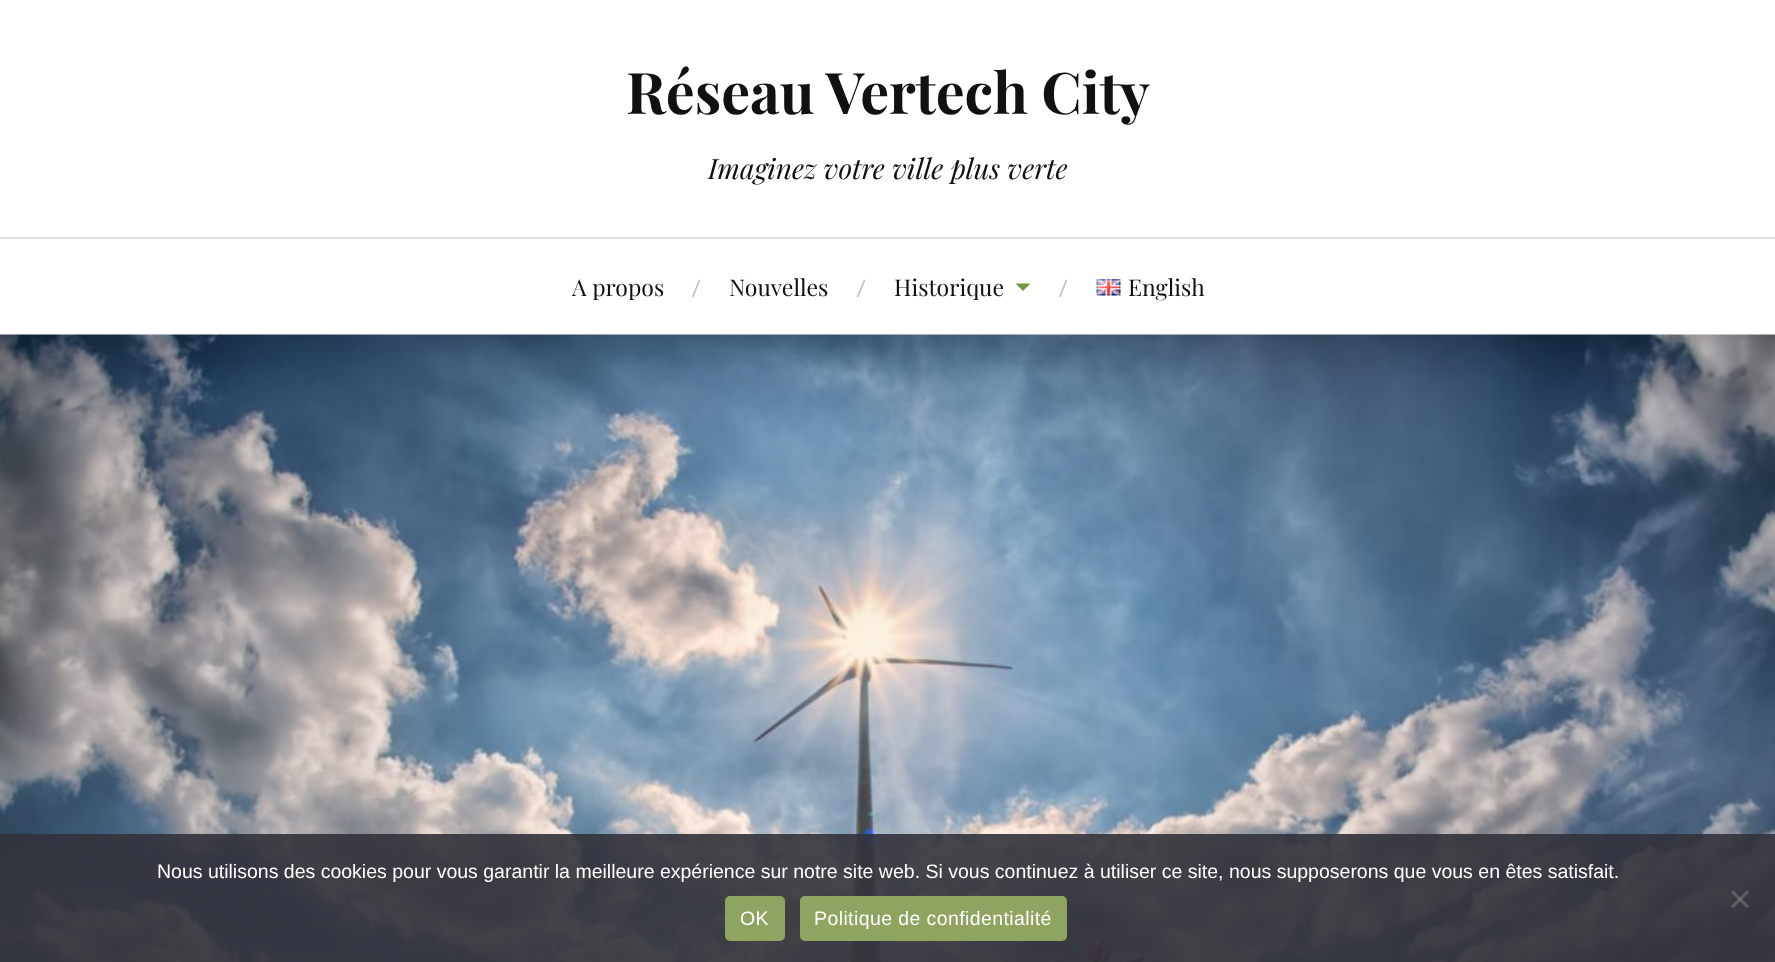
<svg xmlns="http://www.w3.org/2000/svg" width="1775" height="962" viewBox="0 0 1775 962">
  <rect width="100%" height="100%" fill="rgb(255,255,255)"/>
  <text x="626" y="114" font-family="Playfair Display" font-size="57.4" font-weight="bold" fill="rgb(17,17,17)">Réseau Vertech City</text>
  <text x="708" y="179" font-family="Playfair Display" font-size="28" font-style="italic" fill="rgb(17,17,17)">Imaginez votre ville plus verte</text>
  <rect x="0" y="237" width="1775" height="2" fill="rgb(221,221,221)"/>
  <text x="572" y="296" font-family="Playfair Display" font-size="23" fill="rgb(17,17,17)">A propos</text>
  <text x="692" y="296" font-family="Lato" font-size="22" fill="rgb(187,187,187)">/</text>
  <text x="729" y="296" font-family="Playfair Display" font-size="23" fill="rgb(17,17,17)">Nouvelles</text>
  <text x="857" y="296" font-family="Lato" font-size="22" fill="rgb(187,187,187)">/</text>
  <text x="894" y="296" font-family="Playfair Display" font-size="23" fill="rgb(17,17,17)">Historique</text>
  <path d="M1015.5 283.5H1030.5L1023 291Z" fill="rgb(115,154,64)"/>
  <text x="1059" y="296" font-family="Lato" font-size="22" fill="rgb(187,187,187)">/</text>
  <image x="1096" y="279" width="25" height="17" href="pic1.png"/>
  <text x="1128" y="296" font-family="Playfair Display" font-size="23" fill="rgb(17,17,17)">English</text>
  <image x="0" y="334" width="1775" height="628" href="pic2.png"/>
  <rect x="0" y="834" width="1775" height="128" fill="rgba(50,50,58,0.9)"/>
  <text x="157" y="878" font-family="Liberation Sans" font-size="19.5" fill="rgb(255,255,255)">Nous utilisons des cookies pour vous garantir la meilleure expérience sur notre site web. Si vous continuez à utiliser ce site, nous supposerons que vous en êtes satisfait.</text>
  <path d="M1747 890L1749 892.5L1733 908.5L1731 906Z" fill="rgb(92,92,96)"/>
  <path d="M1731 892.5L1733 890L1749 906L1747 908.5Z" fill="rgba(128,128,128,0.5)"/>
  <rect x="725" y="896" width="60" height="45" rx="5" fill="rgb(143,164,96)"/>
  <text x="740" y="925" font-family="Liberation Sans" font-size="19.5" letter-spacing="0.4" fill="rgb(255,255,255)">OK</text>
  <rect x="800" y="896" width="267" height="45" rx="5" fill="rgb(143,164,96)"/>
  <text x="814" y="925" font-family="Liberation Sans" font-size="19.5" letter-spacing="0.4" fill="rgb(255,255,255)">Politique de confidentialité</text>
</svg>
